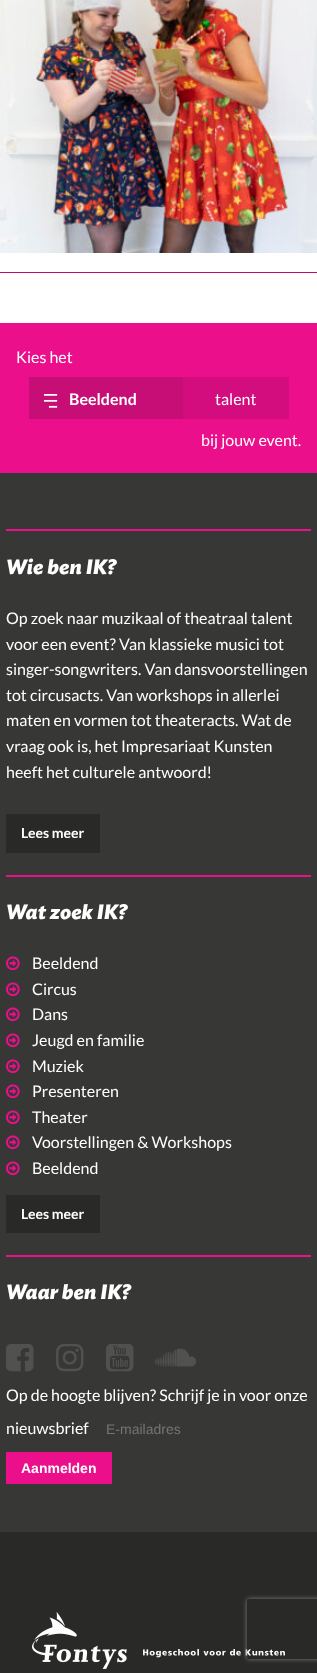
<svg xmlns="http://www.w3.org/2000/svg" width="317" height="1673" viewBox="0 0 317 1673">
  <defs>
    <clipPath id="clip1"><path d="M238 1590H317V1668H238ZM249 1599H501C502 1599 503 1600 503 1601V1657C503 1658 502 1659 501 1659H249C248 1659 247 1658 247 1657V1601C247 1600 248 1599 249 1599Z" clip-rule="evenodd"/></clipPath>
  </defs>
  <rect width="100%" height="100%" fill="rgb(255,255,255)"/>
  <image x="0" y="0" width="317" height="253" href="pic1.png"/>
  <rect x="0" y="272" width="317" height="1" fill="rgb(187,12,111)"/>
  <rect x="0" y="473" width="317" height="1059" fill="rgb(55,55,54)"/>
  <rect x="0" y="323" width="317" height="150" fill="rgb(235,15,139)"/>
  <text x="16" y="363" font-family="Lato" font-size="16" fill="rgb(255,255,255)">Kies het</text>
  <rect x="29" y="377" width="154" height="42" fill="rgb(199,13,118)"/>
  <image x="44" y="394" width="14" height="14" href="pic2.png"/>
  <text x="69" y="405" font-family="Lato" font-size="16" font-weight="bold" fill="rgb(255,255,255)">Beeldend</text>
  <rect x="183" y="377" width="106" height="42" fill="rgb(211,13,125)"/>
  <g font-family="Lato" font-size="16" fill="rgb(255,255,255)">
    <text x="215" y="405">talent</text>
    <text x="201" y="446">bij jouw event.</text>
  </g>
  <rect x="6" y="529" width="305" height="2" fill="rgb(235,15,139)"/>
  <text x="6" y="574" font-family="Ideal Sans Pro" font-size="20.5" font-weight="bold" font-style="italic" fill="rgb(255,255,255)">Wie ben IK?</text>
  <g font-family="Lato" font-size="16" fill="rgb(255,255,255)">
    <text>
      <tspan x="6" y="624">Op zoek naar muzikaal of theatraal talent</tspan>
      <tspan x="6" y="650">voor een event? Van klassieke musici tot</tspan>
      <tspan x="6" y="675">singer-songwriters. Van dansvoorstellingen</tspan>
      <tspan x="6" y="701">tot circusacts. Van workshops in allerlei</tspan>
      <tspan x="6" y="726">maten en vormen tot theateracts. Wat de</tspan>
      <tspan x="6" y="752">vraag ook is, het Impresariaat Kunsten</tspan>
      <tspan x="6" y="778">heeft het culturele antwoord!</tspan>
    </text>
  </g>
  <rect x="6" y="814" width="94" height="39" fill="rgb(41,41,40)"/>
  <text x="21" y="838" font-family="Lato" font-size="14" font-weight="bold" fill="rgb(255,255,255)">Lees meer</text>
  <rect x="6" y="875" width="305" height="2" fill="rgb(235,15,139)"/>
  <text x="6" y="919" font-family="Ideal Sans Pro" font-size="20.5" font-weight="bold" font-style="italic" fill="rgb(255,255,255)">Wat zoek IK?</text>
  <image x="6" y="956" width="14" height="15" href="pic3.png"/>
  <text x="32" y="969" font-family="Lato" font-size="16" fill="rgb(255,255,255)">Beeldend</text>
  <image x="6" y="982" width="14" height="15" href="pic3.png"/>
  <text x="32" y="995" font-family="Lato" font-size="16" fill="rgb(255,255,255)">Circus</text>
  <image x="6" y="1007" width="14" height="15" href="pic3.png"/>
  <text x="32" y="1020" font-family="Lato" font-size="16" fill="rgb(255,255,255)">Dans</text>
  <image x="6" y="1033" width="14" height="15" href="pic3.png"/>
  <text x="32" y="1046" font-family="Lato" font-size="16" fill="rgb(255,255,255)">Jeugd en familie</text>
  <image x="6" y="1059" width="14" height="15" href="pic3.png"/>
  <text x="32" y="1072" font-family="Lato" font-size="16" fill="rgb(255,255,255)">Muziek</text>
  <image x="6" y="1084" width="14" height="15" href="pic3.png"/>
  <text x="32" y="1097" font-family="Lato" font-size="16" fill="rgb(255,255,255)">Presenteren</text>
  <image x="6" y="1110" width="14" height="15" href="pic3.png"/>
  <text x="32" y="1123" font-family="Lato" font-size="16" fill="rgb(255,255,255)">Theater</text>
  <image x="6" y="1135" width="14" height="15" href="pic3.png"/>
  <text x="32" y="1148" font-family="Lato" font-size="16" fill="rgb(255,255,255)">Voorstellingen &amp; Workshops</text>
  <image x="6" y="1161" width="14" height="15" href="pic3.png"/>
  <text x="32" y="1174" font-family="Lato" font-size="16" fill="rgb(255,255,255)">Beeldend</text>
  <rect x="6" y="1195" width="94" height="38" fill="rgb(41,41,40)"/>
  <text x="21" y="1219" font-family="Lato" font-size="14" font-weight="bold" fill="rgb(255,255,255)">Lees meer</text>
  <rect x="6" y="1255" width="305" height="2" fill="rgb(235,15,139)"/>
  <text x="6" y="1299" font-family="Ideal Sans Pro" font-size="20.5" font-weight="bold" font-style="italic" fill="rgb(255,255,255)">Waar ben IK?</text>
  <image x="6" y="1344" width="28" height="28" href="pic4.png"/>
  <image x="56" y="1344" width="28" height="28" href="pic5.png"/>
  <image x="106" y="1344" width="28" height="28" href="pic6.png"/>
  <image x="155" y="1348" width="41" height="19" href="pic7.png"/>
  <g font-family="Lato" font-size="16" fill="rgb(255,255,255)">
    <text x="6" y="1401">Op de hoogte blijven? Schrijf je in voor onze</text>
    <text x="6" y="1434">nieuwsbrief</text>
  </g>
  <text x="106" y="1434" font-family="Liberation Sans" font-size="14" fill="rgb(117,117,117)">E-mailadres</text>
  <rect x="6" y="1452" width="106" height="32" fill="rgb(235,15,139)"/>
  <text x="21" y="1473" font-family="Liberation Sans" font-size="14" font-weight="bold" fill="rgb(255,255,255)">Aanmelden</text>
  <rect x="0" y="1532" width="317" height="141" fill="rgb(41,41,40)"/>
  <image x="32" y="1612" width="253" height="57" href="pic8.png"/>
  <g clip-path="url(#clip1)">
    <rect x="247" y="1599" width="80" height="60" rx="2" fill="rgb(128,128,128)" filter="blur(2.5px)"/>
  </g>
</svg>
